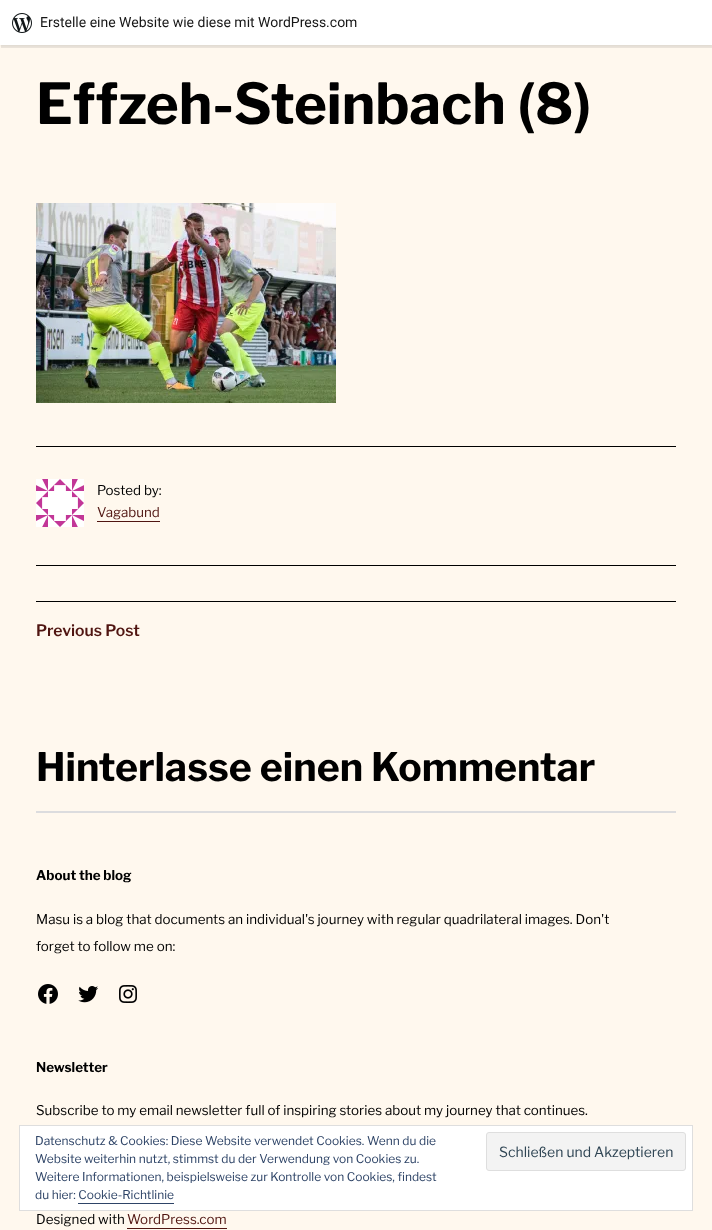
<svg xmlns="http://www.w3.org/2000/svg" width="712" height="1230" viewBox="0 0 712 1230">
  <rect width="100%" height="100%" fill="rgb(255,248,238)"/>
  <rect x="0" y="1" width="712" height="45" fill="rgba(0,0,0,0.05)" filter="blur(1px)"/>
  <path d="M1 45V48H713V3H712V45Z" fill="rgba(0,0,0,0.08)"/>
  <rect x="0" y="0" width="712" height="45" fill="rgb(255,255,255)"/>
  <image x="12" y="13" width="20" height="20" href="pic1.png"/>
  <text x="40" y="27" font-family="Roboto" font-size="14" fill="rgb(23,23,23)">Erstelle eine Website wie diese mit WordPress.com</text>
  <text x="36" y="124" font-family="Libre Franklin" font-size="56.25" font-weight="bold" fill="rgb(0,0,0)">Effzeh-Steinbach (8)</text>
  <image x="36" y="203" width="300" height="200" href="pic2.png"/>
  <rect x="36" y="446" width="640" height="1" fill="rgb(0,0,0)"/>
  <image x="36" y="479" width="48" height="48" href="pic3.png"/>
  <text x="97" y="495" font-family="Libre Franklin" font-size="13.4" fill="rgb(0,0,0)">Posted by:</text>
  <text x="97" y="517" font-family="Libre Franklin" font-size="13.4" fill="rgb(80,21,17)">Vagabund</text>
  <rect x="97" y="521" width="63" height="1" fill="rgb(80,21,17)"/>
  <rect x="36" y="565" width="640" height="1" fill="rgb(0,0,0)"/>
  <rect x="36" y="601" width="640" height="1" fill="rgb(0,0,0)"/>
  <text x="36" y="636" font-family="Libre Franklin" font-size="15.75" font-weight="600" fill="rgb(80,21,17)">Previous Post</text>
  <text x="36" y="781" font-family="Libre Franklin" font-size="39.25" font-weight="bold" fill="rgb(0,0,0)">Hinterlasse einen Kommentar</text>
  <rect x="36" y="811" width="640" height="2" fill="rgb(220,220,222)"/>
  <text x="36" y="880" font-family="Libre Franklin" font-size="13.4" font-weight="bold" fill="rgb(0,0,0)">About the blog</text>
  <g font-family="Libre Franklin" font-size="13.4" fill="rgb(0,0,0)">
    <text x="36" y="924">Masu is a blog that documents an individual's journey with regular quadrilateral images. Don't</text>
    <text x="36" y="951">forget to follow me on:</text>
  </g>
  <image x="38" y="984" width="20" height="20" href="pic4.png"/>
  <image x="78" y="986" width="20" height="17" href="pic5.png"/>
  <image x="119" y="985" width="18" height="18" href="pic6.png"/>
  <text x="36" y="1072" font-family="Libre Franklin" font-size="13.4" font-weight="bold" fill="rgb(0,0,0)">Newsletter</text>
  <g font-family="Libre Franklin" font-size="13.4" fill="rgb(0,0,0)">
    <text x="36" y="1115">Subscribe to my email newsletter full of inspiring stories about my journey that continues.</text>
    <text x="36" y="1224">Designed with</text>
  </g>
  <text x="127" y="1224" font-family="Libre Franklin" font-size="13.4" fill="rgb(80,21,17)">WordPress.com</text>
  <rect x="127" y="1228" width="100" height="1" fill="rgb(80,21,17)"/>
  <rect x="19.5" y="1125.5" width="673" height="85" fill="rgb(255,255,255)" stroke="rgb(222,222,222)"/>
  <g font-family="Libre Franklin" font-size="12" fill="rgb(46,68,103)">
    <text>
      <tspan x="35" y="1145">Datenschutz &amp; Cookies: Diese Website verwendet Cookies. Wenn du die</tspan>
      <tspan x="35" y="1163">Website weiterhin nutzt, stimmst du der Verwendung von Cookies zu.</tspan>
    </text>
  </g>
  <rect x="486.5" y="1132.5" width="199" height="38" rx="2.5" fill="rgb(243,243,243)" stroke="rgb(222,222,222)"/>
  <text x="499" y="1157" font-family="Libre Franklin" font-size="14" fill="rgb(46,68,83)">Schließen und Akzeptieren</text>
  <g font-family="Libre Franklin" font-size="12" fill="rgb(46,68,103)">
    <text>
      <tspan x="35" y="1181">Weitere Informationen, beispielsweise zur Kontrolle von Cookies, findest</tspan>
      <tspan x="35" y="1199">du hier: Cookie-Richtlinie</tspan>
    </text>
  </g>
  <rect x="78" y="1203" width="96" height="1" fill="rgb(46,68,103)"/>
</svg>
